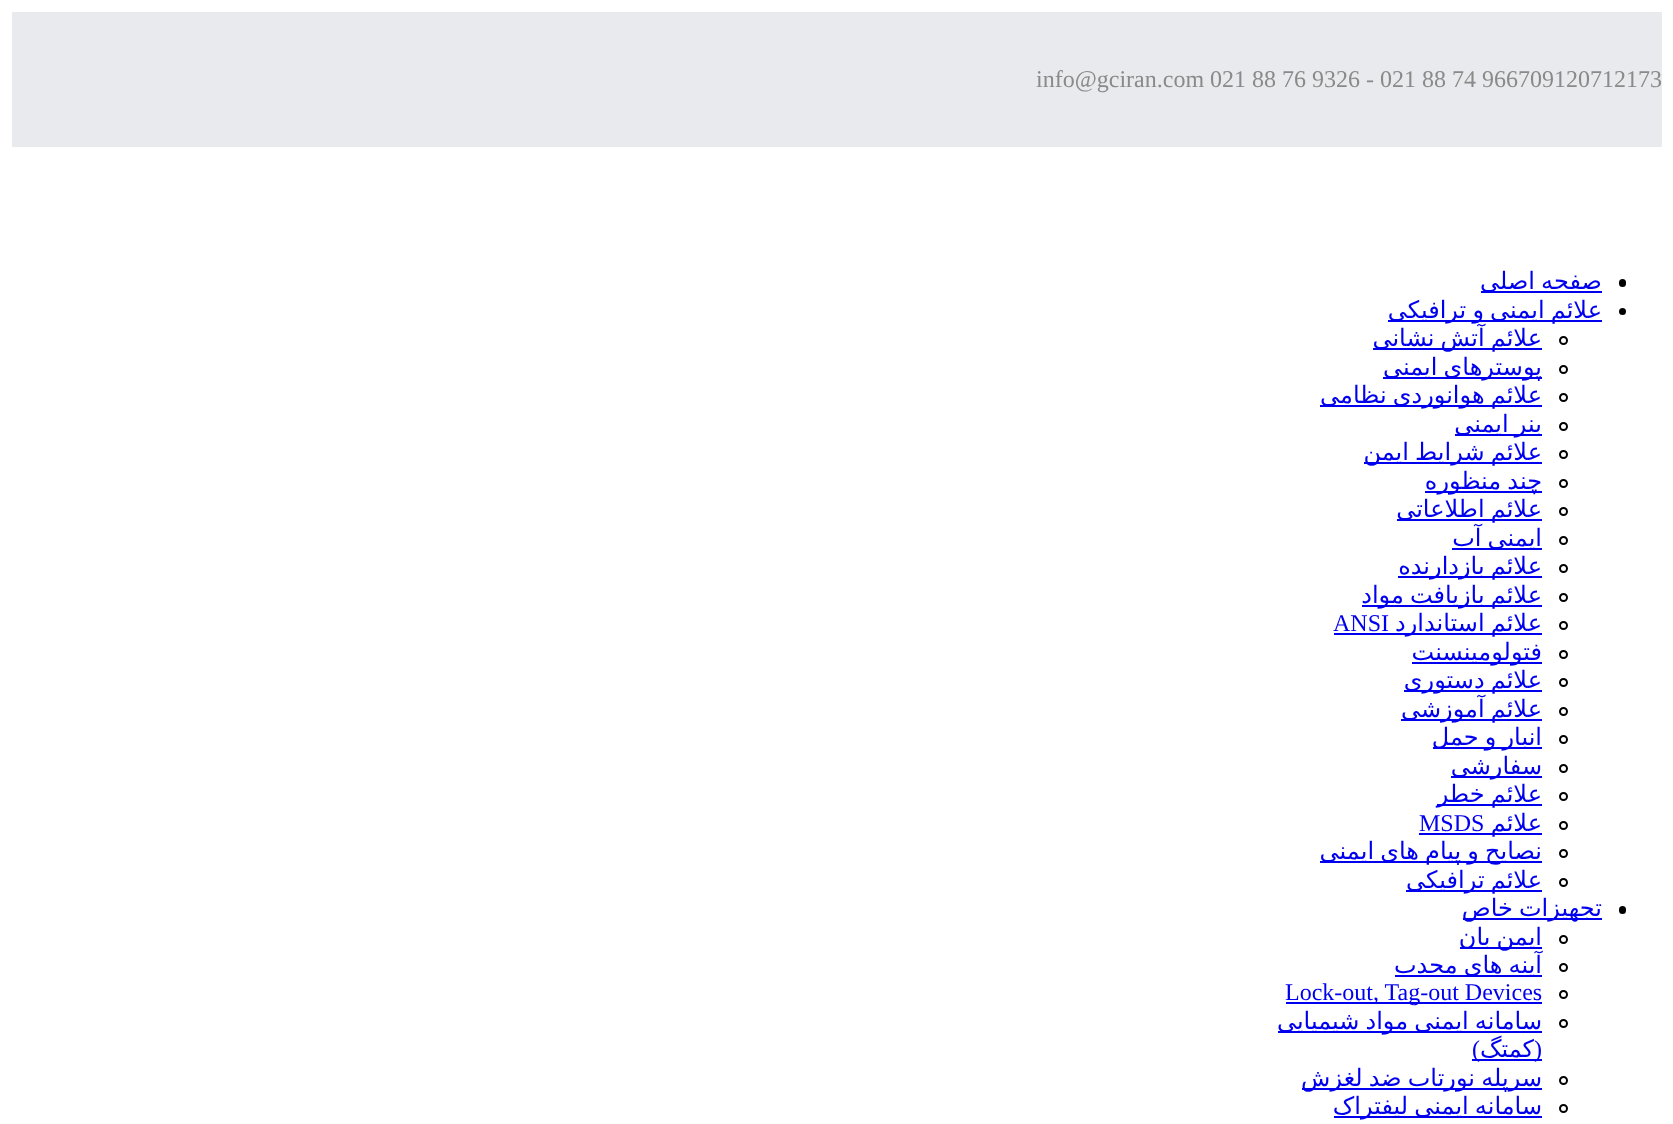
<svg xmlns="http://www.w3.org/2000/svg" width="1673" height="1124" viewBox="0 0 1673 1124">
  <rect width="100%" height="100%" fill="rgb(255,255,255)"/>
  <rect x="12" y="12" width="1650" height="135" fill="rgb(233,234,237)"/>
  <text x="1036" y="87" font-family="Liberation Serif" font-size="24" fill="rgb(138,138,138)">info@gciran.com 021 88 76 9326 - 021 88 74 966709120712173</text>
  <rect x="1619" y="279" width="7" height="8" rx="3.5" fill="rgb(0,0,0)"/>
  <rect x="1481" y="291" width="121" height="2" fill="rgb(0,0,238)"/>
  <text x="1602" y="289" word-spacing="-1.5" font-family="DejaVu Sans" font-size="24" direction="rtl" fill="rgb(0,0,238)">صفحه اصلی</text>
  <circle cx="1622.5" cy="311.5" r="3.5" fill="rgb(0,0,0)"/>
  <rect x="1388" y="320" width="214" height="2" fill="rgb(0,0,238)"/>
  <text x="1602" y="318" word-spacing="-1.5" font-family="DejaVu Sans" font-size="24" direction="rtl" fill="rgb(0,0,238)">علائم ایمنی و ترافیکی</text>
  <circle cx="1563.5" cy="340.5" r="3.5" fill="none" stroke="rgb(0,0,0)" stroke-width="2"/>
  <rect x="1373" y="348" width="169" height="2" fill="rgb(0,0,238)"/>
  <text x="1542" y="346" word-spacing="-1.5" font-family="DejaVu Sans" font-size="24" direction="rtl" fill="rgb(0,0,238)">علائم آتش نشانی</text>
  <circle cx="1563.5" cy="369.5" r="3.5" fill="none" stroke="rgb(0,0,0)" stroke-width="2"/>
  <rect x="1383" y="377" width="159" height="2" fill="rgb(0,0,238)"/>
  <text x="1542" y="375" word-spacing="-1.5" font-family="DejaVu Sans" font-size="24" direction="rtl" fill="rgb(0,0,238)">پوسترهای ایمنی</text>
  <circle cx="1563.5" cy="397.5" r="3.5" fill="none" stroke="rgb(0,0,0)" stroke-width="2"/>
  <rect x="1320" y="405" width="222" height="2" fill="rgb(0,0,238)"/>
  <text x="1542" y="403" word-spacing="-1.5" font-family="DejaVu Sans" font-size="24" direction="rtl" fill="rgb(0,0,238)">علائم هوانوردی نظامی</text>
  <circle cx="1563.5" cy="426.5" r="3.5" fill="none" stroke="rgb(0,0,0)" stroke-width="2"/>
  <rect x="1455" y="434" width="87" height="2" fill="rgb(0,0,238)"/>
  <text x="1542" y="432" word-spacing="-1.5" font-family="DejaVu Sans" font-size="24" direction="rtl" fill="rgb(0,0,238)">بنر ایمنی</text>
  <circle cx="1563.5" cy="454.5" r="3.5" fill="none" stroke="rgb(0,0,0)" stroke-width="2"/>
  <rect x="1364" y="462" width="178" height="2" fill="rgb(0,0,238)"/>
  <text x="1542" y="460" word-spacing="-1.5" font-family="DejaVu Sans" font-size="24" direction="rtl" fill="rgb(0,0,238)">علائم شرایط ایمن</text>
  <circle cx="1563.5" cy="483.5" r="3.5" fill="none" stroke="rgb(0,0,0)" stroke-width="2"/>
  <rect x="1425" y="491" width="117" height="2" fill="rgb(0,0,238)"/>
  <text x="1542" y="489" word-spacing="-1.5" font-family="DejaVu Sans" font-size="24" direction="rtl" fill="rgb(0,0,238)">چند منظوره</text>
  <circle cx="1563.5" cy="511.5" r="3.5" fill="none" stroke="rgb(0,0,0)" stroke-width="2"/>
  <rect x="1397" y="519" width="145" height="2" fill="rgb(0,0,238)"/>
  <text x="1542" y="517" word-spacing="-1.5" font-family="DejaVu Sans" font-size="24" direction="rtl" fill="rgb(0,0,238)">علائم اطلاعاتی</text>
  <circle cx="1563.5" cy="540.5" r="3.5" fill="none" stroke="rgb(0,0,0)" stroke-width="2"/>
  <rect x="1452" y="548" width="90" height="2" fill="rgb(0,0,238)"/>
  <text x="1542" y="546" word-spacing="-1.5" font-family="DejaVu Sans" font-size="24" direction="rtl" fill="rgb(0,0,238)">ایمنی آب</text>
  <circle cx="1563.5" cy="568.5" r="3.5" fill="none" stroke="rgb(0,0,0)" stroke-width="2"/>
  <rect x="1398" y="576" width="144" height="2" fill="rgb(0,0,238)"/>
  <text x="1542" y="574" word-spacing="-1.5" font-family="DejaVu Sans" font-size="24" direction="rtl" fill="rgb(0,0,238)">علائم بازدارنده</text>
  <circle cx="1563.5" cy="597.5" r="3.5" fill="none" stroke="rgb(0,0,0)" stroke-width="2"/>
  <rect x="1362" y="605" width="180" height="2" fill="rgb(0,0,238)"/>
  <text x="1542" y="603" word-spacing="-1.5" font-family="DejaVu Sans" font-size="24" direction="rtl" fill="rgb(0,0,238)">علائم بازیافت مواد</text>
  <circle cx="1563.5" cy="625.5" r="3.5" fill="none" stroke="rgb(0,0,0)" stroke-width="2"/>
  <rect x="1334" y="633" width="208" height="2" fill="rgb(0,0,238)"/>
  <text x="1542" y="631" word-spacing="-1.5" font-family="DejaVu Sans" font-size="24" direction="rtl" fill="rgb(0,0,238)">علائم استاندارد</text>
  <text x="1333" y="631" font-family="Liberation Serif" font-size="24" fill="rgb(0,0,238)">ANSI</text>
  <circle cx="1563.5" cy="654.5" r="3.5" fill="none" stroke="rgb(0,0,0)" stroke-width="2"/>
  <rect x="1412" y="662" width="130" height="2" fill="rgb(0,0,238)"/>
  <text x="1542" y="660" font-family="DejaVu Sans" font-size="24" direction="rtl" fill="rgb(0,0,238)">فتولومینسنت</text>
  <circle cx="1563.5" cy="682.5" r="3.5" fill="none" stroke="rgb(0,0,0)" stroke-width="2"/>
  <rect x="1404" y="690" width="138" height="2" fill="rgb(0,0,238)"/>
  <text x="1542" y="688" word-spacing="-1.5" font-family="DejaVu Sans" font-size="24" direction="rtl" fill="rgb(0,0,238)">علائم دستوری</text>
  <circle cx="1563.5" cy="711.5" r="3.5" fill="none" stroke="rgb(0,0,0)" stroke-width="2"/>
  <rect x="1401" y="719" width="141" height="2" fill="rgb(0,0,238)"/>
  <text x="1542" y="717" word-spacing="-1.5" font-family="DejaVu Sans" font-size="24" direction="rtl" fill="rgb(0,0,238)">علائم آموزشی</text>
  <circle cx="1563.5" cy="739.5" r="3.5" fill="none" stroke="rgb(0,0,0)" stroke-width="2"/>
  <rect x="1433" y="747" width="109" height="2" fill="rgb(0,0,238)"/>
  <text x="1542" y="745" word-spacing="-1.5" font-family="DejaVu Sans" font-size="24" direction="rtl" fill="rgb(0,0,238)">انبار و حمل</text>
  <circle cx="1563.5" cy="768.5" r="3.5" fill="none" stroke="rgb(0,0,0)" stroke-width="2"/>
  <rect x="1451" y="776" width="91" height="2" fill="rgb(0,0,238)"/>
  <text x="1542" y="774" font-family="DejaVu Sans" font-size="24" direction="rtl" fill="rgb(0,0,238)">سفارشی</text>
  <circle cx="1563.5" cy="796.5" r="3.5" fill="none" stroke="rgb(0,0,0)" stroke-width="2"/>
  <rect x="1437" y="804" width="105" height="2" fill="rgb(0,0,238)"/>
  <text x="1542" y="802" word-spacing="-1.5" font-family="DejaVu Sans" font-size="24" direction="rtl" fill="rgb(0,0,238)">علائم خطر</text>
  <circle cx="1563.5" cy="825.5" r="3.5" fill="none" stroke="rgb(0,0,0)" stroke-width="2"/>
  <rect x="1419" y="833" width="123" height="2" fill="rgb(0,0,238)"/>
  <text x="1542" y="831" font-family="DejaVu Sans" font-size="24" direction="rtl" fill="rgb(0,0,238)">علائم</text>
  <text x="1419" y="831" font-family="Liberation Serif" font-size="24" fill="rgb(0,0,238)">MSDS</text>
  <circle cx="1563.5" cy="853.5" r="3.5" fill="none" stroke="rgb(0,0,0)" stroke-width="2"/>
  <rect x="1320" y="861" width="222" height="2" fill="rgb(0,0,238)"/>
  <text x="1542" y="859" word-spacing="-1.5" font-family="DejaVu Sans" font-size="24" direction="rtl" fill="rgb(0,0,238)">نصایح و پیام های ایمنی</text>
  <circle cx="1563.5" cy="882.5" r="3.5" fill="none" stroke="rgb(0,0,0)" stroke-width="2"/>
  <rect x="1406" y="890" width="136" height="2" fill="rgb(0,0,238)"/>
  <text x="1542" y="888" word-spacing="-1.5" font-family="DejaVu Sans" font-size="24" direction="rtl" fill="rgb(0,0,238)">علائم ترافیکی</text>
  <rect x="1619" y="906" width="7" height="8" rx="3.5" fill="rgb(0,0,0)"/>
  <rect x="1463" y="918" width="139" height="2" fill="rgb(0,0,238)"/>
  <text x="1602" y="916" word-spacing="-1.5" font-family="DejaVu Sans" font-size="24" direction="rtl" fill="rgb(0,0,238)">تجهیزات خاص</text>
  <circle cx="1563.5" cy="939.5" r="3.5" fill="none" stroke="rgb(0,0,0)" stroke-width="2"/>
  <rect x="1460" y="947" width="82" height="2" fill="rgb(0,0,238)"/>
  <text x="1542" y="945" word-spacing="-1.5" font-family="DejaVu Sans" font-size="24" direction="rtl" fill="rgb(0,0,238)">ایمن بان</text>
  <circle cx="1563.5" cy="967.5" r="3.5" fill="none" stroke="rgb(0,0,0)" stroke-width="2"/>
  <rect x="1395" y="975" width="147" height="2" fill="rgb(0,0,238)"/>
  <text x="1542" y="973" word-spacing="-1.5" font-family="DejaVu Sans" font-size="24" direction="rtl" fill="rgb(0,0,238)">آینه های محدب</text>
  <circle cx="1563.5" cy="994.5" r="3.5" fill="none" stroke="rgb(0,0,0)" stroke-width="2"/>
  <rect x="1286" y="1002" width="256" height="2" fill="rgb(0,0,238)"/>
  <text x="1285" y="1000" font-family="Liberation Serif" font-size="24" fill="rgb(0,0,238)">Lock-out, Tag-out Devices</text>
  <circle cx="1563.5" cy="1023.5" r="3.5" fill="none" stroke="rgb(0,0,0)" stroke-width="2"/>
  <rect x="1278" y="1031" width="264" height="2" fill="rgb(0,0,238)"/>
  <text x="1542" y="1029" word-spacing="-1.5" font-family="DejaVu Sans" font-size="24" direction="rtl" fill="rgb(0,0,238)">سامانه ایمنی مواد شیمیایی</text>
  <rect x="1472" y="1059" width="70" height="2" fill="rgb(0,0,238)"/>
  <text x="1542" y="1057" font-family="Liberation Serif" font-size="24" direction="rtl" fill="rgb(0,0,238)">(</text>
  <text x="1534" y="1057" font-family="DejaVu Sans" font-size="24" direction="rtl" fill="rgb(0,0,238)">کمتگ</text>
  <text x="1480" y="1057" font-family="Liberation Serif" font-size="24" direction="rtl" fill="rgb(0,0,238)">)</text>
  <circle cx="1563.5" cy="1080.5" r="3.5" fill="none" stroke="rgb(0,0,0)" stroke-width="2"/>
  <rect x="1302" y="1088" width="240" height="2" fill="rgb(0,0,238)"/>
  <text x="1542" y="1086" word-spacing="-1.5" font-family="DejaVu Sans" font-size="24" direction="rtl" fill="rgb(0,0,238)">سرپله نورتاب ضد لغزش</text>
  <circle cx="1563.5" cy="1108.5" r="3.5" fill="none" stroke="rgb(0,0,0)" stroke-width="2"/>
  <rect x="1334" y="1116" width="208" height="2" fill="rgb(0,0,238)"/>
  <text x="1542" y="1114" word-spacing="-1.5" font-family="DejaVu Sans" font-size="24" direction="rtl" fill="rgb(0,0,238)">سامانه ایمنی لیفتراک</text>
</svg>
